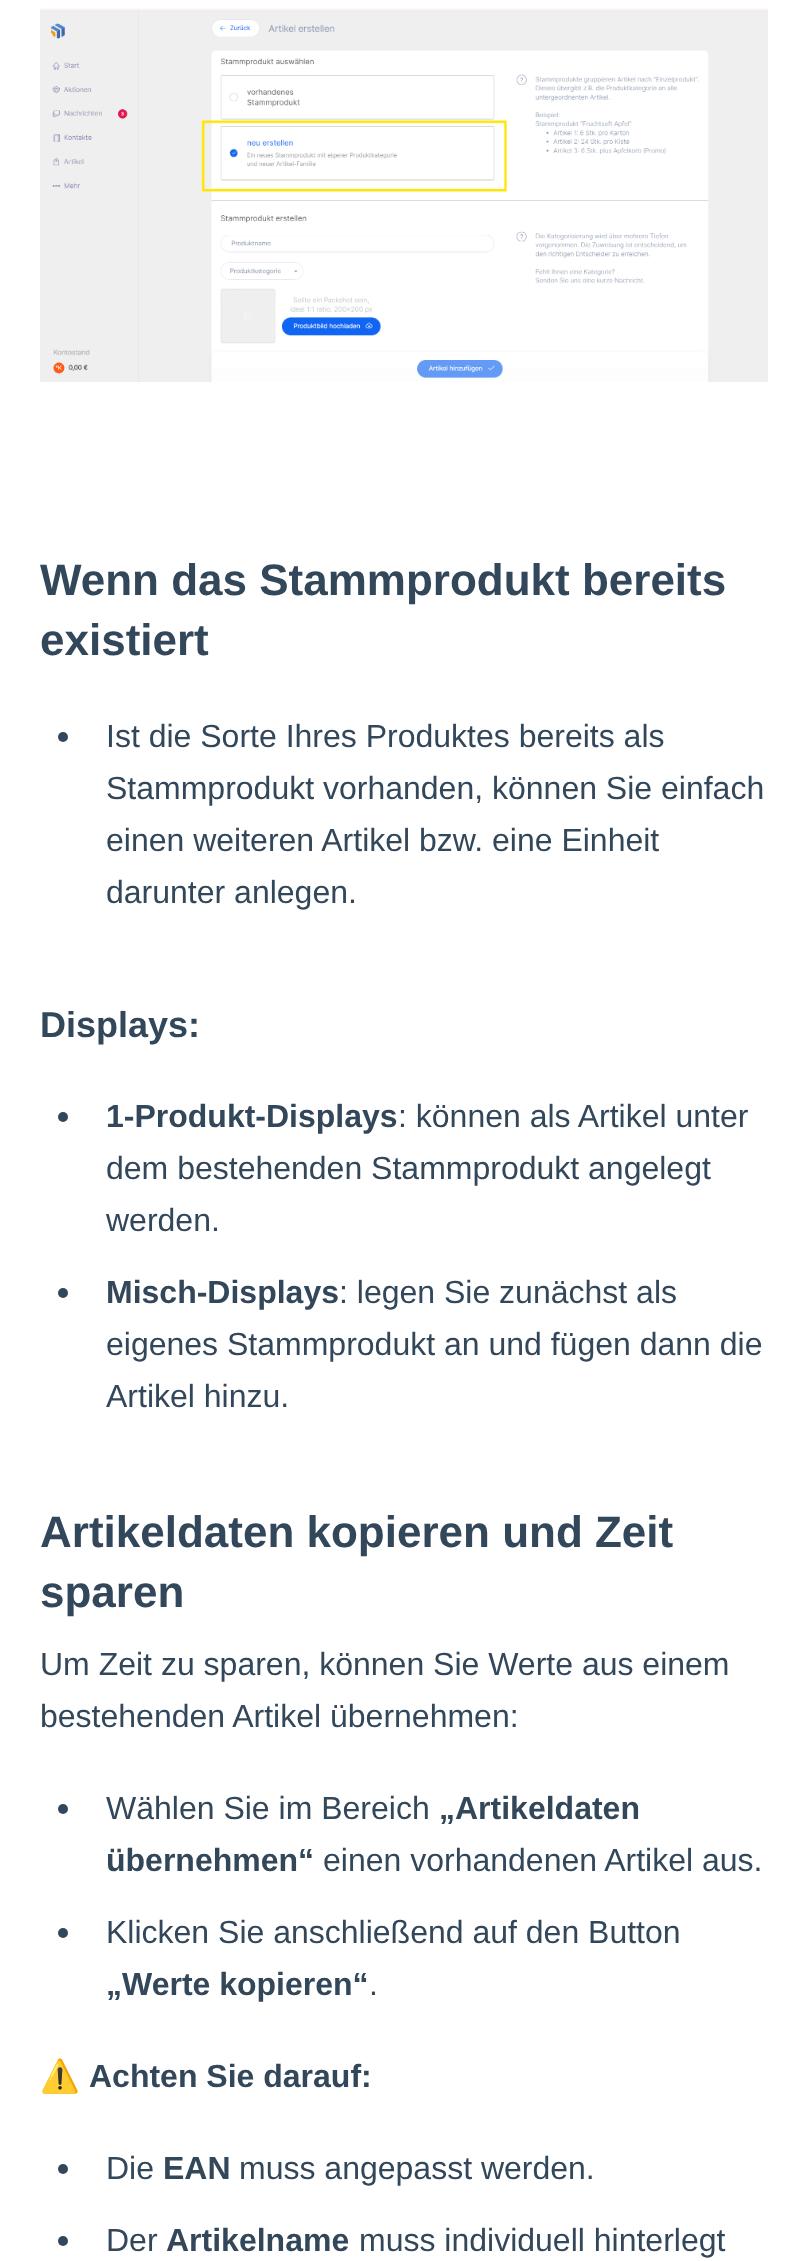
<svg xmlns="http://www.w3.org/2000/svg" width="807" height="2261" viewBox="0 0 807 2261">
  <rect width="100%" height="100%" fill="rgb(255,255,255)"/>
  <image x="40" y="8" width="728" height="374" href="pic1.png"/>
  <g font-family="Liberation Sans" font-size="44" font-weight="bold" fill="rgb(51,71,91)">
    <text>
      <tspan x="40" y="595">Wenn das Stammprodukt bereits</tspan>
      <tspan x="40" y="655">existiert</tspan>
    </text>
  </g>
  <circle cx="63" cy="737" r="5" fill="rgb(51,71,91)"/>
  <g font-family="Liberation Sans" font-size="32" fill="rgb(51,71,91)">
    <text>
      <tspan x="106" y="747">Ist die Sorte Ihres Produktes bereits als</tspan>
      <tspan x="106" y="799">Stammprodukt vorhanden, können Sie einfach</tspan>
      <tspan x="106" y="851">einen weiteren Artikel bzw. eine Einheit</tspan>
      <tspan x="106" y="903">darunter anlegen.</tspan>
    </text>
  </g>
  <text x="40" y="1037" font-family="Liberation Sans" font-size="36" font-weight="bold" fill="rgb(51,71,91)">Displays:</text>
  <circle cx="63" cy="1117" r="5" fill="rgb(51,71,91)"/>
  <text x="106" y="1127" font-family="Liberation Sans" font-size="32" font-weight="bold" fill="rgb(51,71,91)">1-Produkt-Displays</text>
  <g font-family="Liberation Sans" font-size="32" fill="rgb(51,71,91)">
    <text x="398" y="1127">: können als Artikel unter</text>
    <text>
      <tspan x="106" y="1179">dem bestehenden Stammprodukt angelegt</tspan>
      <tspan x="106" y="1231">werden.</tspan>
    </text>
  </g>
  <circle cx="63" cy="1293" r="5" fill="rgb(51,71,91)"/>
  <text x="106" y="1303" font-family="Liberation Sans" font-size="32" font-weight="bold" fill="rgb(51,71,91)">Misch-Displays</text>
  <g font-family="Liberation Sans" font-size="32" fill="rgb(51,71,91)">
    <text x="339" y="1303">: legen Sie zunächst als</text>
    <text>
      <tspan x="106" y="1355">eigenes Stammprodukt an und fügen dann die</tspan>
      <tspan x="106" y="1407">Artikel hinzu.</tspan>
    </text>
  </g>
  <g font-family="Liberation Sans" font-size="44" font-weight="bold" fill="rgb(51,71,91)">
    <text>
      <tspan x="40" y="1547">Artikeldaten kopieren und Zeit</tspan>
      <tspan x="40" y="1607">sparen</tspan>
    </text>
  </g>
  <g font-family="Liberation Sans" font-size="32" fill="rgb(51,71,91)">
    <text>
      <tspan x="40" y="1675">Um Zeit zu sparen, können Sie Werte aus einem</tspan>
      <tspan x="40" y="1727">bestehenden Artikel übernehmen:</tspan>
    </text>
  </g>
  <circle cx="63" cy="1809" r="5" fill="rgb(51,71,91)"/>
  <text x="106" y="1819" font-family="Liberation Sans" font-size="32" fill="rgb(51,71,91)">Wählen Sie im Bereich</text>
  <g font-family="Liberation Sans" font-size="32" font-weight="bold" fill="rgb(51,71,91)">
    <text x="439" y="1819">„Artikeldaten</text>
    <text x="106" y="1871">übernehmen“</text>
  </g>
  <text x="323" y="1871" font-family="Liberation Sans" font-size="32" fill="rgb(51,71,91)">einen vorhandenen Artikel aus.</text>
  <circle cx="63" cy="1933" r="5" fill="rgb(51,71,91)"/>
  <text x="106" y="1943" font-family="Liberation Sans" font-size="32" fill="rgb(51,71,91)">Klicken Sie anschließend auf den Button</text>
  <text x="106" y="1995" font-family="Liberation Sans" font-size="32" font-weight="bold" fill="rgb(51,71,91)">„Werte kopieren“</text>
  <text x="369" y="1995" font-family="Liberation Sans" font-size="32" fill="rgb(51,71,91)">.</text>
  <text x="40" y="2087" font-family="Noto Color Emoji" font-size="32" fill="rgb(51,71,91)">⚠️</text>
  <text x="89" y="2087" font-family="Liberation Sans" font-size="32" font-weight="bold" fill="rgb(51,71,91)">Achten Sie darauf:</text>
  <circle cx="63" cy="2169" r="5" fill="rgb(51,71,91)"/>
  <text x="106" y="2179" font-family="Liberation Sans" font-size="32" fill="rgb(51,71,91)">Die</text>
  <text x="163" y="2179" font-family="Liberation Sans" font-size="32" font-weight="bold" fill="rgb(51,71,91)">EAN</text>
  <text x="239" y="2179" font-family="Liberation Sans" font-size="32" fill="rgb(51,71,91)">muss angepasst werden.</text>
  <circle cx="63" cy="2241" r="5" fill="rgb(51,71,91)"/>
  <text x="106" y="2251" font-family="Liberation Sans" font-size="32" fill="rgb(51,71,91)">Der</text>
  <text x="166" y="2251" font-family="Liberation Sans" font-size="32" font-weight="bold" fill="rgb(51,71,91)">Artikelname</text>
  <text x="359" y="2251" font-family="Liberation Sans" font-size="32" fill="rgb(51,71,91)">muss individuell hinterlegt</text>
</svg>
